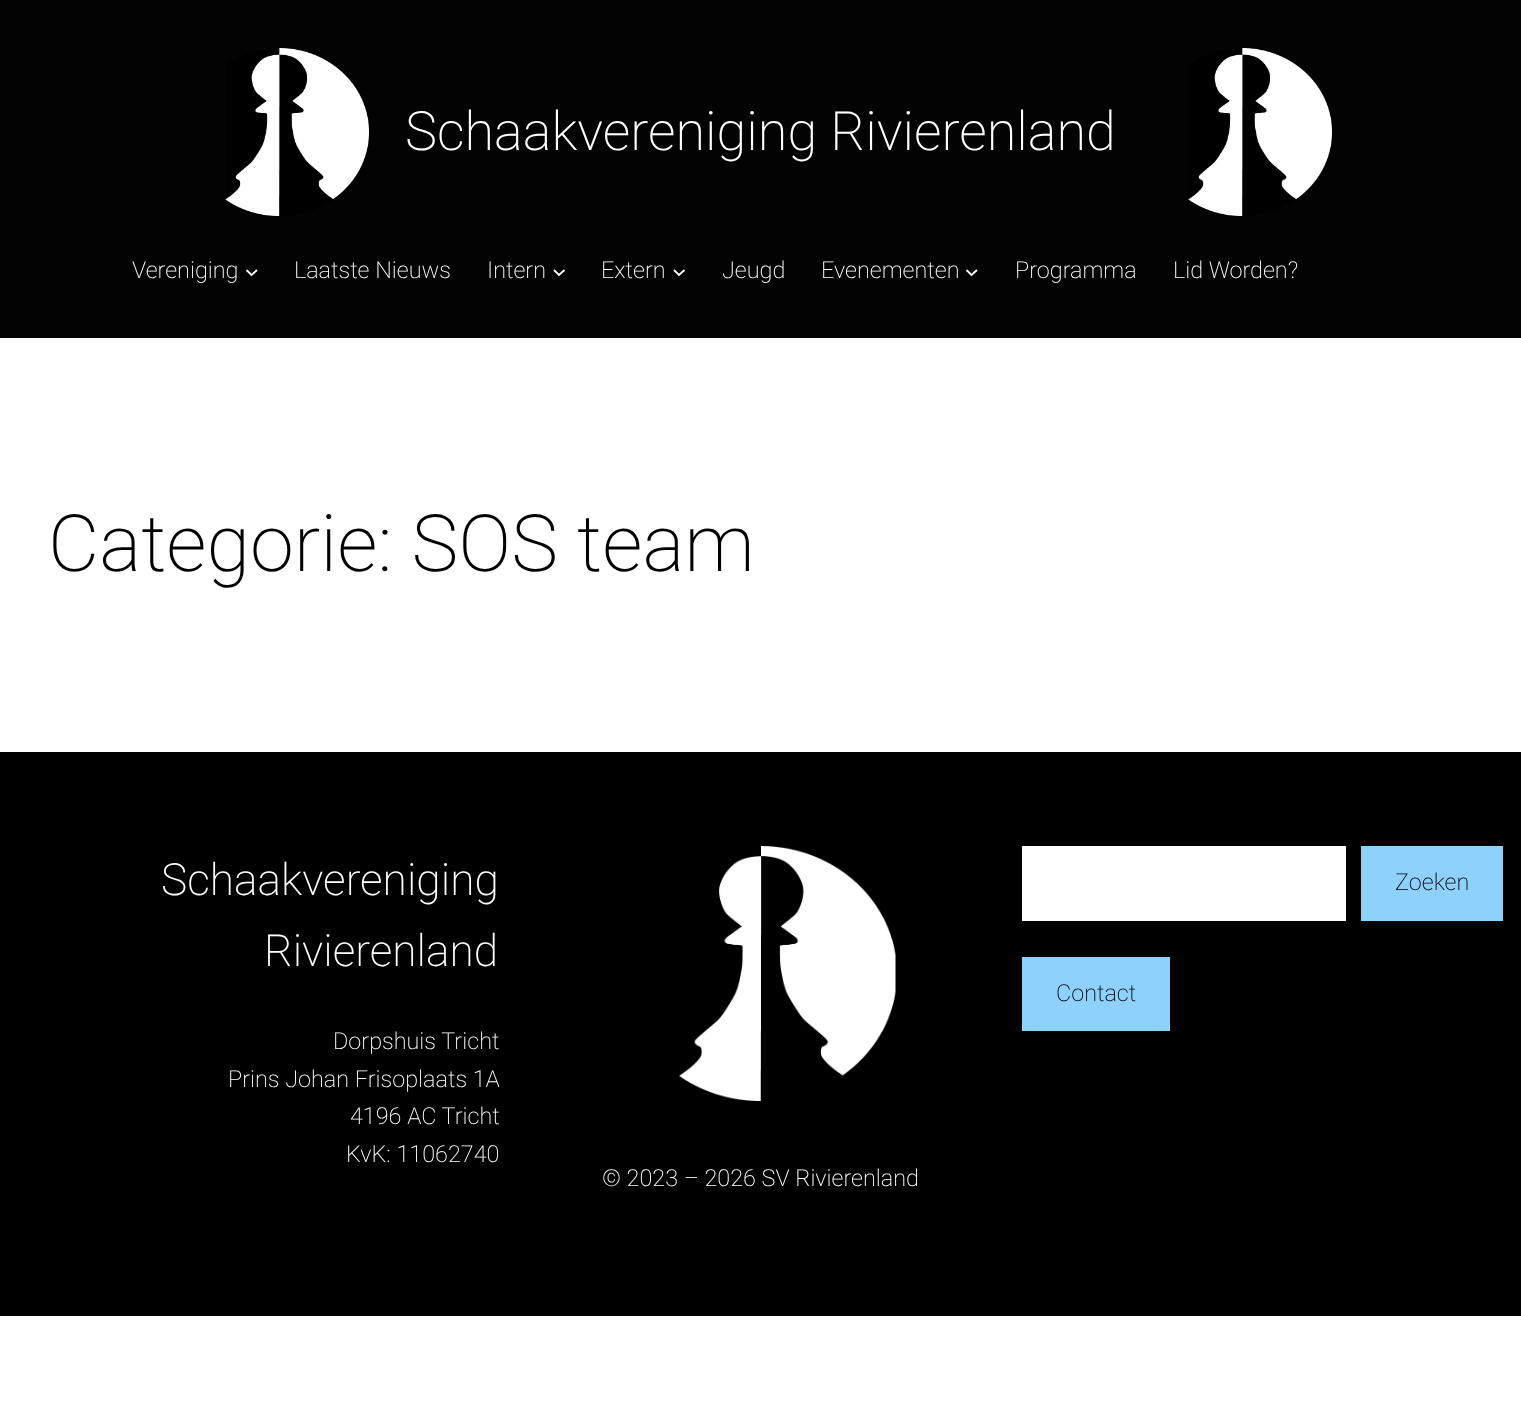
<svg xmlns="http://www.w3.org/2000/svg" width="1521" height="1409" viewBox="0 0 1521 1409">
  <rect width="100%" height="100%" fill="rgb(255,255,255)"/>
  <rect x="0" y="0" width="1521" height="338" fill="rgb(3,3,3)"/>
  <image x="225" y="48" width="144" height="168" href="pic1.png"/>
  <text x="405" y="150" font-family="Roboto" font-size="54" font-weight="200" fill="rgb(255,255,255)">Schaakvereniging Rivierenland</text>
  <image x="1188" y="48" width="144" height="168" href="pic2.png"/>
  <text x="132" y="278" font-family="Roboto" font-size="23.4" font-weight="200" fill="rgb(255,255,255)">Vereniging</text>
  <path d="M246.5 270L251.5 275L257 270" fill="none" stroke="rgb(255,255,255)" stroke-width="1.8"/>
  <g font-family="Roboto" font-size="23.4" font-weight="200" fill="rgb(255,255,255)">
    <text x="294" y="278">Laatste Nieuws</text>
    <text x="487" y="278">Intern</text>
  </g>
  <path d="M554 270L559 275L564.5 270" fill="none" stroke="rgb(255,255,255)" stroke-width="1.8"/>
  <text x="601" y="278" font-family="Roboto" font-size="23.4" font-weight="200" fill="rgb(255,255,255)">Extern</text>
  <path d="M674 270L679 275L684.5 270" fill="none" stroke="rgb(255,255,255)" stroke-width="1.8"/>
  <g font-family="Roboto" font-size="23.4" font-weight="200" fill="rgb(255,255,255)">
    <text x="722" y="278">Jeugd</text>
    <text x="821" y="278">Evenementen</text>
  </g>
  <path d="M966.5 270L971.5 275L977 270" fill="none" stroke="rgb(255,255,255)" stroke-width="1.8"/>
  <g font-family="Roboto" font-size="23.4" font-weight="200" fill="rgb(255,255,255)">
    <text x="1015" y="278">Programma</text>
    <text x="1173" y="278">Lid Worden?</text>
  </g>
  <text x="48" y="571" font-family="Roboto" font-size="79" font-weight="200" fill="rgb(0,0,0)">Categorie: SOS team</text>
  <rect x="0" y="752" width="1521" height="564" fill="rgb(0,0,0)"/>
  <g font-family="Roboto" font-size="44.25" font-weight="200" fill="rgb(255,255,255)">
    <text x="161" y="895">Schaakvereniging</text>
    <text x="264" y="966">Rivierenland</text>
  </g>
  <g font-family="Roboto" font-size="23.4" font-weight="200" fill="rgb(255,255,255)">
    <text x="333" y="1049">Dorpshuis Tricht</text>
    <text x="228" y="1087">Prins Johan Frisoplaats 1A</text>
    <text x="350" y="1124">4196 AC Tricht</text>
    <text x="346" y="1162">KvK: 11062740</text>
  </g>
  <rect x="1022" y="846" width="324" height="75" fill="rgb(255,255,255)"/>
  <rect x="1361" y="846" width="142" height="75" fill="rgb(142,209,252)"/>
  <text x="1395" y="890" font-family="Roboto" font-size="23.4" font-weight="200" fill="rgb(0,0,0)">Zoeken</text>
  <rect x="1022" y="957" width="148" height="74" fill="rgb(142,209,252)"/>
  <text x="1056" y="1001" font-family="Roboto" font-size="23.4" font-weight="200" fill="rgb(0,0,0)">Contact</text>
  <image x="679" y="846" width="217" height="255" href="pic3.png"/>
  <text x="602" y="1186" font-family="Roboto" font-size="23.4" font-weight="200" fill="rgb(255,255,255)">© 2023 – 2026 SV Rivierenland</text>
</svg>
